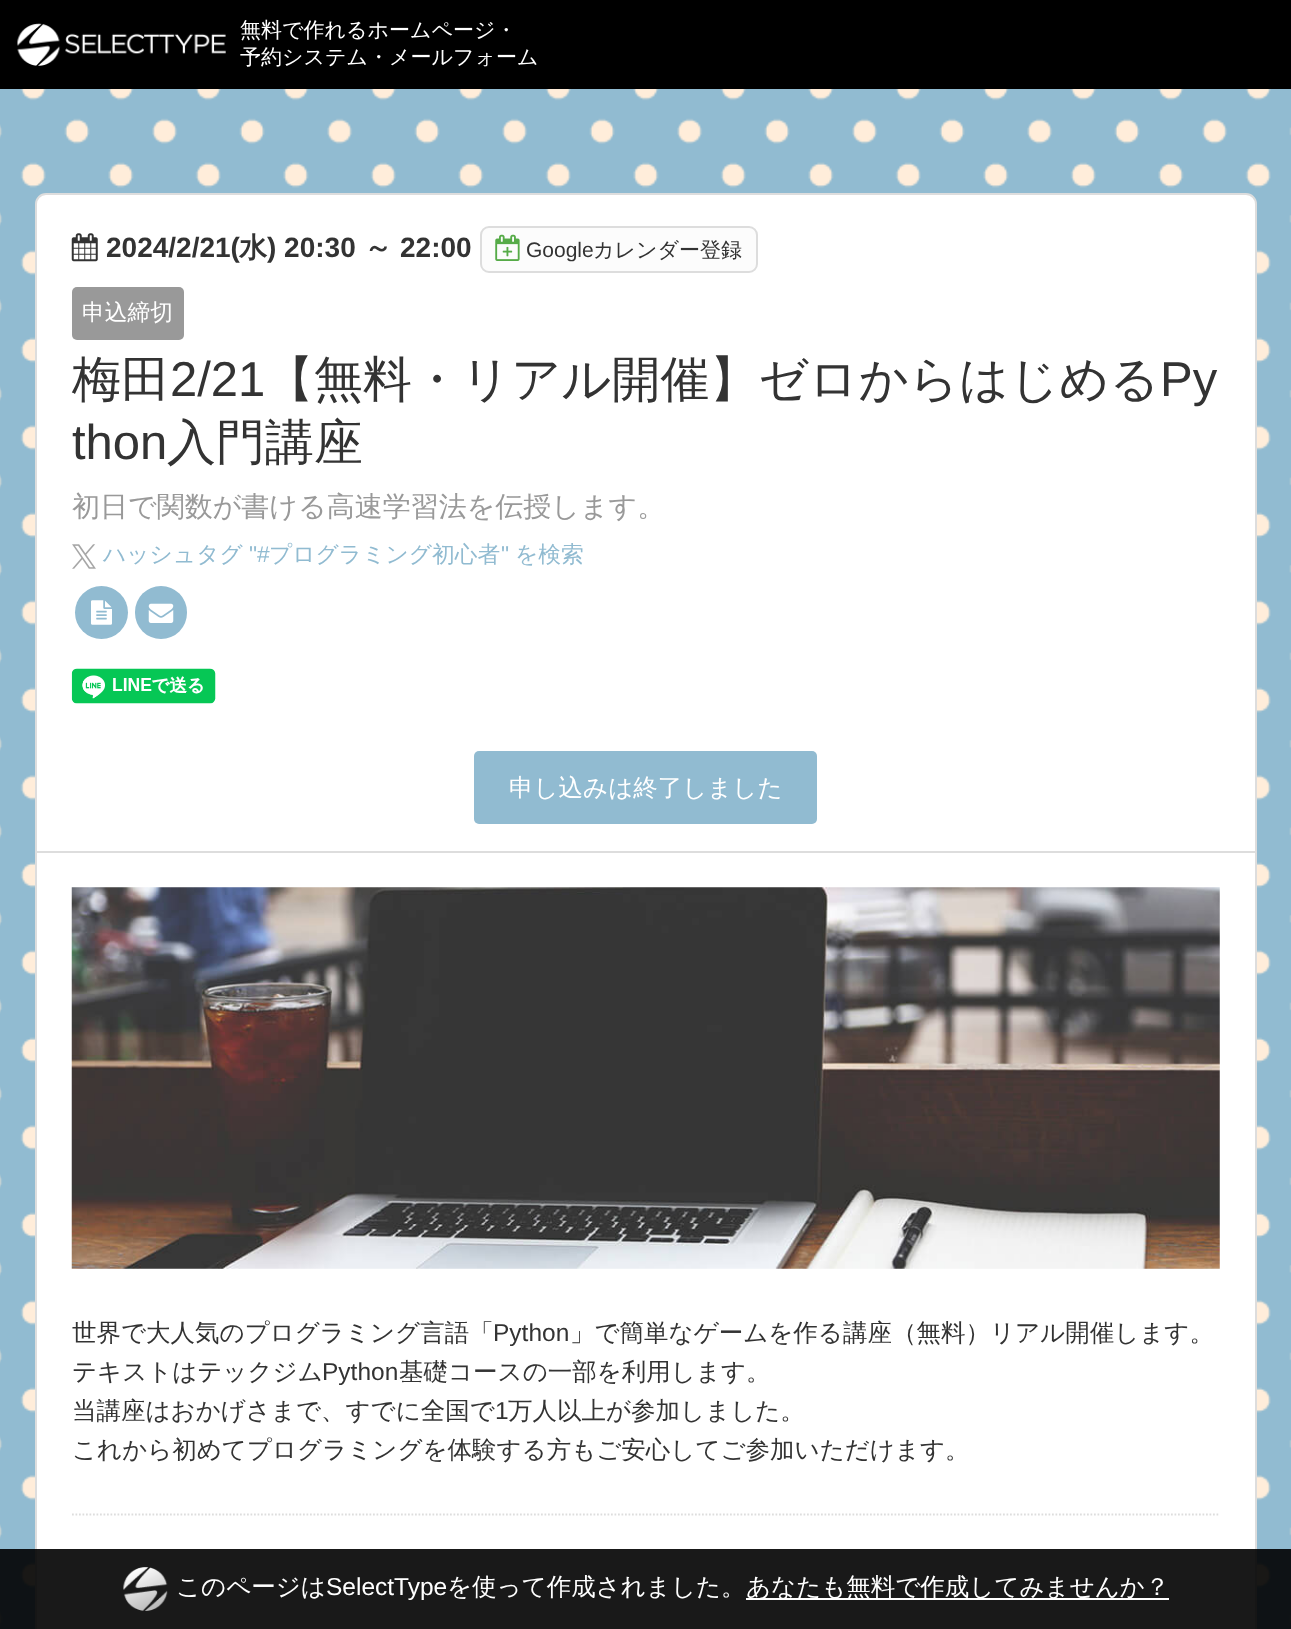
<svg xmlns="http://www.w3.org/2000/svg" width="1291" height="1629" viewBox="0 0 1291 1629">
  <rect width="100%" height="100%" fill="rgb(255,255,255)"/>
  <rect x="0" y="0" width="1291" height="89" fill="rgb(0,0,0)"/>
  <image x="17" y="23" width="209" height="43" href="pic1.png"/>
  <g font-family="WenQuanYi Zen Hei" font-size="21" font-weight="500" fill="rgb(255,255,255)">
    <text>
      <tspan x="240" y="37">無料で作れるホームページ・</tspan>
      <tspan x="240" y="64">予約システム・メールフォーム</tspan>
    </text>
  </g>
  <image x="0" y="89" width="1291" height="1540" href="pic2.png"/>
  <rect x="36" y="194" width="1220" height="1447" rx="10" fill="rgb(255,255,255)" stroke="rgb(221,221,221)" stroke-width="2"/>
  <rect x="37" y="851" width="1218" height="2" fill="rgb(221,221,221)"/>
  <image x="71" y="233" width="27" height="29" href="pic3.png"/>
  <text x="106" y="257" font-family="Liberation Sans" font-size="28" font-weight="bold" fill="rgb(51,51,51)">2024/2/21(</text>
  <text x="239" y="257" font-family="WenQuanYi Zen Hei" font-size="28" font-weight="bold" fill="rgb(51,51,51)">水</text>
  <text x="267" y="257" font-family="Liberation Sans" font-size="28" font-weight="bold" fill="rgb(51,51,51)">) 20:30</text>
  <text x="364" y="257" font-family="WenQuanYi Zen Hei" font-size="28" font-weight="bold" fill="rgb(51,51,51)">～</text>
  <text x="400" y="257" font-family="Liberation Sans" font-size="28" font-weight="bold" fill="rgb(51,51,51)">22:00</text>
  <rect x="481" y="227" width="276" height="45" rx="8" fill="rgb(252,252,252)" stroke="rgb(221,221,221)" stroke-width="2"/>
  <image x="495" y="234" width="25" height="27" href="pic4.png"/>
  <text x="526" y="257" font-family="Liberation Sans" font-size="21" fill="rgb(51,51,51)">Google</text>
  <text x="593" y="257" font-family="WenQuanYi Zen Hei" font-size="21" font-weight="500" fill="rgb(51,51,51)">カレンダー登録</text>
  <rect x="72" y="287" width="112" height="53" rx="5" fill="rgb(153,153,153)"/>
  <text x="82" y="320" font-family="WenQuanYi Zen Hei" font-size="22.75" font-weight="500" fill="rgb(255,255,255)">申込締切</text>
  <text x="72" y="396" font-family="WenQuanYi Zen Hei" font-size="49" font-weight="500" fill="rgb(51,51,51)">梅田</text>
  <text x="170" y="396" font-family="Liberation Sans" font-size="49" fill="rgb(51,51,51)">2/21</text>
  <text x="265" y="396" font-family="WenQuanYi Zen Hei" font-size="49" font-weight="500" fill="rgb(51,51,51)">【無料・リアル開催】ゼロからはじめる</text>
  <g font-family="Liberation Sans" font-size="49" fill="rgb(51,51,51)">
    <text x="1160" y="396">Py</text>
    <text x="72" y="459">thon</text>
  </g>
  <text x="167" y="459" font-family="WenQuanYi Zen Hei" font-size="49" font-weight="500" fill="rgb(51,51,51)">入門講座</text>
  <text x="72" y="516" font-family="WenQuanYi Zen Hei" font-size="28" font-weight="500" fill="rgb(153,153,153)">初日で関数が書ける高速学習法を伝授します。</text>
  <image x="72" y="544" width="24" height="25" href="pic5.png"/>
  <text x="103" y="562" font-family="WenQuanYi Zen Hei" font-size="22.75" font-weight="500" fill="rgb(145,187,209)">ハッシュタグ</text>
  <text x="249" y="562" font-family="Liberation Sans" font-size="22.75" fill="rgb(145,187,209)">"#</text>
  <text x="269" y="562" font-family="WenQuanYi Zen Hei" font-size="22.75" font-weight="500" fill="rgb(145,187,209)">プログラミング初心者</text>
  <text x="501" y="562" font-family="Liberation Sans" font-size="22.75" fill="rgb(145,187,209)">"</text>
  <text x="515" y="562" font-family="WenQuanYi Zen Hei" font-size="22.75" font-weight="500" fill="rgb(145,187,209)">を検索</text>
  <circle cx="101.5" cy="612.5" r="26.5" fill="rgb(145,187,209)"/>
  <image x="91" y="600" width="21" height="25" href="pic6.png"/>
  <rect x="135" y="586" width="52" height="53" rx="26" fill="rgb(145,187,209)"/>
  <image x="148" y="603" width="26" height="20" href="pic7.png"/>
  <image x="71" y="668" width="145" height="36" href="pic8.png"/>
  <rect x="474" y="751" width="343" height="73" rx="5" fill="rgb(145,187,209)"/>
  <text x="509" y="796" font-family="WenQuanYi Zen Hei" font-size="24.5" font-weight="500" fill="rgb(255,255,255)">申し込みは終了しました</text>
  <image x="71" y="887" width="1149" height="382" href="pic9.png"/>
  <text x="72" y="1341" font-family="WenQuanYi Zen Hei" font-size="24.5" font-weight="500" fill="rgb(51,51,51)">世界で大人気のプログラミング言語「</text>
  <text x="493" y="1341" font-family="Liberation Sans" font-size="24.5" fill="rgb(51,51,51)">Python</text>
  <g font-family="WenQuanYi Zen Hei" font-size="24.5" font-weight="500" fill="rgb(51,51,51)">
    <text x="570" y="1341">」で簡単なゲームを作る講座（無料）リアル開催します。</text>
    <text x="72" y="1380">テキストはテックジム</text>
  </g>
  <text x="322" y="1380" font-family="Liberation Sans" font-size="24.5" fill="rgb(51,51,51)">Python</text>
  <g font-family="WenQuanYi Zen Hei" font-size="24.5" font-weight="500" fill="rgb(51,51,51)">
    <text x="399" y="1380">基礎コースの一部を利用します。</text>
    <text x="72" y="1419">当講座はおかげさまで、すでに全国で</text>
  </g>
  <text x="495" y="1419" font-family="Liberation Sans" font-size="24.5" fill="rgb(51,51,51)">1</text>
  <g font-family="WenQuanYi Zen Hei" font-size="24.5" font-weight="500" fill="rgb(51,51,51)">
    <text x="508" y="1419">万人以上が参加しました。</text>
    <text x="72" y="1458">これから初めてプログラミングを体験する方もご安心してご参加いただけます。</text>
  </g>
  <path d="M72 1514.5H1220" fill="none" stroke="rgb(221,221,221)" stroke-width="1.8" stroke-dasharray="1.75 1.75"/>
  <rect x="0" y="1549" width="1291" height="80" fill="rgba(0,0,0,0.9)"/>
  <image x="123" y="1567" width="45" height="44" href="pic10.png"/>
  <text x="176" y="1595" font-family="WenQuanYi Zen Hei" font-size="24.5" font-weight="500" fill="rgb(255,255,255)">このページは</text>
  <text x="326" y="1595" font-family="Liberation Sans" font-size="24.5" fill="rgb(255,255,255)">SelectType</text>
  <text x="447" y="1595" font-family="WenQuanYi Zen Hei" font-size="24.5" font-weight="500" fill="rgb(255,255,255)">を使って作成されました。</text>
  <rect x="746" y="1598" width="423" height="2" fill="rgb(255,255,255)"/>
  <text x="746" y="1595" font-family="WenQuanYi Zen Hei" font-size="24.5" font-weight="500" fill="rgb(255,255,255)">あなたも無料で作成してみませんか？</text>
</svg>
